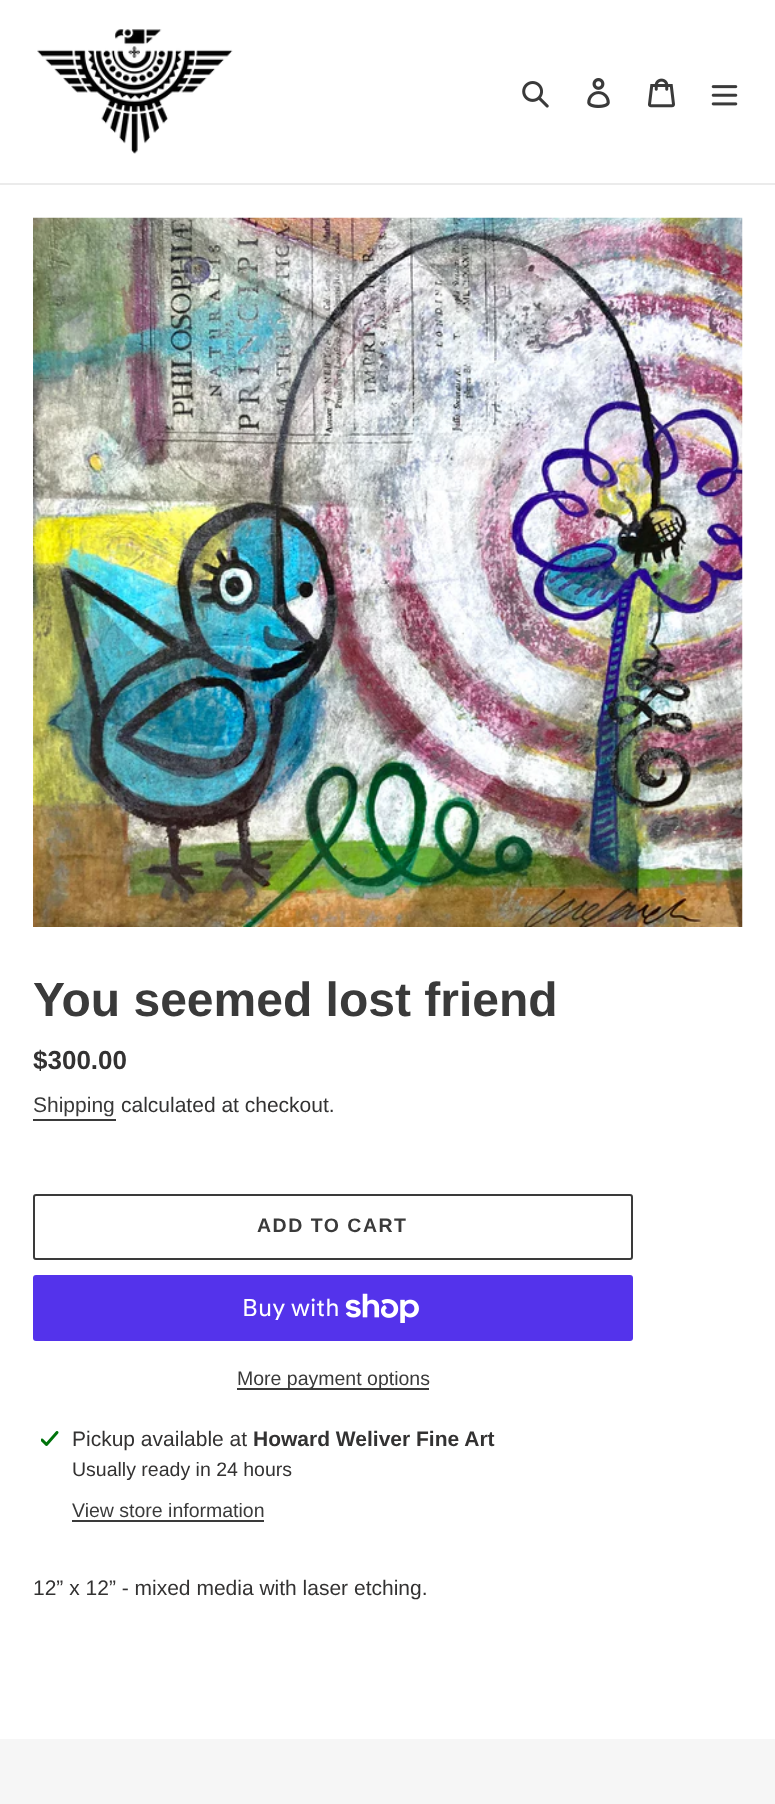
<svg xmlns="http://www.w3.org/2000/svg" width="775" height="1804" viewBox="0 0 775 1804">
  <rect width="100%" height="100%" fill="rgb(255,255,255)"/>
  <rect x="0" y="183" width="775" height="2" fill="rgb(235,235,235)"/>
  <image x="37" y="29" width="196" height="125" href="pic1.png"/>
  <image x="522" y="81" width="27" height="27" href="pic2.png"/>
  <image x="587" y="78" width="23" height="30" href="pic3.png"/>
  <image x="648" y="78" width="27" height="30" href="pic4.png"/>
  <image x="711" y="85" width="27" height="21" href="pic5.png"/>
  <image x="33" y="217" width="710" height="710" href="pic6.png"/>
  <text x="33" y="1016" font-family="Liberation Sans" font-size="48" font-weight="bold" fill="rgb(58,58,58)">You seemed lost friend</text>
  <text x="33" y="1069" font-family="Liberation Sans" font-size="26" font-weight="bold" fill="rgb(51,50,50)">$300.00</text>
  <text x="33" y="1112" font-family="Liberation Sans" font-size="21" fill="rgb(58,58,58)">Shipping</text>
  <rect x="33" y="1119" width="83" height="2" fill="rgb(58,58,58)"/>
  <text x="121" y="1112" font-family="Liberation Sans" font-size="21" fill="rgb(51,50,50)">calculated at checkout.</text>
  <rect x="34" y="1195" width="598" height="64" rx="2" fill="none" stroke="rgb(58,58,58)" stroke-width="2"/>
  <text x="257" y="1232" font-family="Liberation Sans" font-size="19.5" font-weight="bold" letter-spacing="1.5" fill="rgb(58,58,58)">ADD TO CART</text>
  <rect x="33" y="1275" width="600" height="66" rx="3" fill="rgb(84,51,235)"/>
  <text x="242" y="1316" font-family="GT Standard" font-size="24" fill="rgb(255,255,255)">Buy with</text>
  <image x="345" y="1293" width="74" height="30" href="pic7.png"/>
  <rect x="237" y="1388" width="192" height="2" fill="rgb(58,58,58)"/>
  <text x="237" y="1385" font-family="Liberation Sans" font-size="19.5" fill="rgb(58,58,58)">More payment options</text>
  <image x="41" y="1431" width="18" height="15" href="pic8.png"/>
  <text x="72" y="1446" font-family="Liberation Sans" font-size="21" fill="rgb(51,50,50)">Pickup available at</text>
  <text x="253" y="1446" font-family="Liberation Sans" font-size="21" font-weight="bold" fill="rgb(51,50,50)">Howard Weliver Fine Art</text>
  <text x="72" y="1476" font-family="Liberation Sans" font-size="19.5" fill="rgb(51,50,50)">Usually ready in 24 hours</text>
  <text x="72" y="1517" font-family="Liberation Sans" font-size="19.5" fill="rgb(58,58,58)">View store information</text>
  <rect x="72" y="1520" width="192" height="2" fill="rgb(58,58,58)"/>
  <text x="33" y="1595" font-family="Liberation Sans" font-size="21" fill="rgb(51,50,50)">12” x 12” - mixed media with laser etching.</text>
  <rect x="0" y="1739" width="775" height="65" fill="rgb(246,246,246)"/>
</svg>
